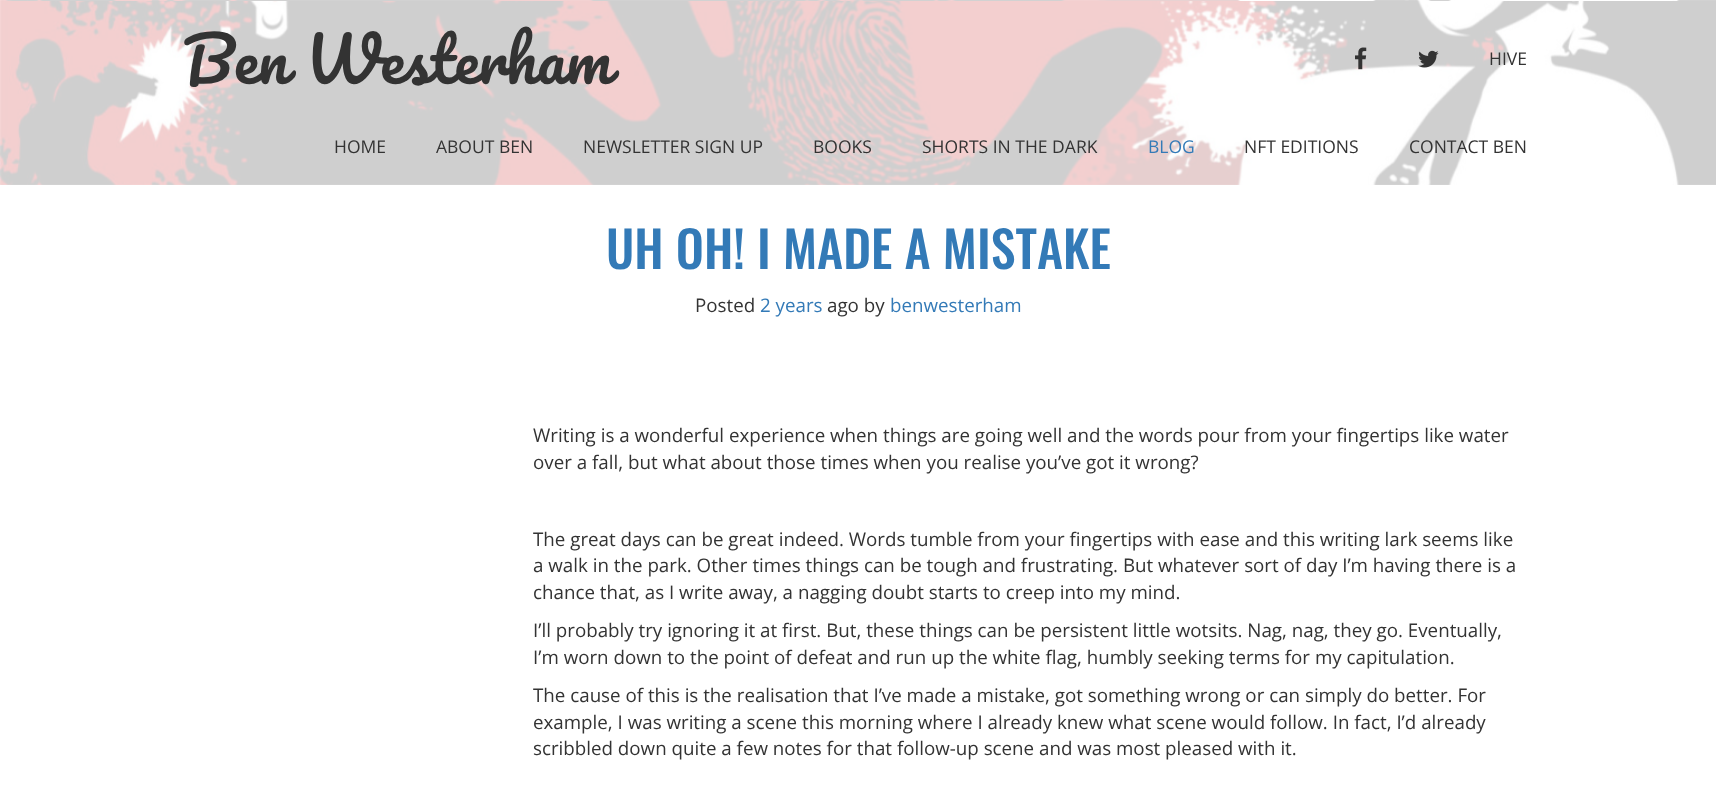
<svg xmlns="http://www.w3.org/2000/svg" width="1716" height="789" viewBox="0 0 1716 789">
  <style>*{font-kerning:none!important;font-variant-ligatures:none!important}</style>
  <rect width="100%" height="100%" fill="rgb(255,255,255)"/>
  <image x="0" y="0" width="1716" height="185" href="pic2.png"/>
  <image x="0" y="0" width="1716" height="1" href="pic1.png"/>
  <rect x="0" y="0" width="1716" height="1" fill="rgba(255,255,255,0.81)"/>
  <text x="183" y="84" word-spacing="1" font-family="Pacifico" font-size="61.25" fill="rgb(51,51,51)">Ben Westerham</text>
  <image x="1355" y="47" width="12" height="23" href="pic3.png"/>
  <image x="1418" y="50" width="21" height="18" href="pic4.png"/>
  <g font-family="Open Sans" font-size="17.5" fill="rgb(51,51,51)">
    <text x="1489" y="65">HIVE</text>
    <text x="334" y="153">HOME</text>
    <text x="436" y="153">ABOUT BEN</text>
    <text x="583" y="153">NEWSLETTER SIGN UP</text>
    <text x="813" y="153">BOOKS</text>
    <text x="922" y="153">SHORTS IN THE DARK</text>
  </g>
  <text x="1148" y="153" font-family="Open Sans" font-size="17.5" fill="rgb(51,122,183)">BLOG</text>
  <g font-family="Open Sans" font-size="17.5" fill="rgb(51,51,51)">
    <text x="1244" y="153">NFT EDITIONS</text>
    <text x="1409" y="153">CONTACT BEN</text>
  </g>
  <text x="606" y="269" font-family="Oswald" font-size="50" font-weight="500" fill="rgb(51,122,183)">UH OH! I MADE A MISTAKE</text>
  <text x="695" y="312" font-family="Open Sans" font-size="18.75" fill="rgb(51,51,51)">Posted</text>
  <text x="760" y="312" font-family="Open Sans" font-size="18.75" fill="rgb(51,122,183)">2 years</text>
  <text x="827" y="312" font-family="Open Sans" font-size="18.75" fill="rgb(51,51,51)">ago by</text>
  <text x="890" y="312" font-family="Open Sans" font-size="18.75" fill="rgb(51,122,183)">benwesterham</text>
  <g font-family="Open Sans" font-size="18.75" fill="rgb(51,51,51)">
    <text>
      <tspan x="533" y="442">Writing is a wonderful experience when things are going well and the words pour from your fingertips like water</tspan>
      <tspan x="533" y="469">over a fall, but what about those times when you realise you’ve got it wrong?</tspan>
    </text>
    <text>
      <tspan x="533" y="546">The great days can be great indeed. Words tumble from your fingertips with ease and this writing lark seems like</tspan>
      <tspan x="533" y="572">a walk in the park. Other times things can be tough and frustrating. But whatever sort of day I’m having there is a</tspan>
      <tspan x="533" y="599">chance that, as I write away, a nagging doubt starts to creep into my mind.</tspan>
    </text>
    <text>
      <tspan x="533" y="637">I’ll probably try ignoring it at first. But, these things can be persistent little wotsits. Nag, nag, they go. Eventually,</tspan>
      <tspan x="533" y="664">I’m worn down to the point of defeat and run up the white flag, humbly seeking terms for my capitulation.</tspan>
    </text>
    <text>
      <tspan x="533" y="702">The cause of this is the realisation that I’ve made a mistake, got something wrong or can simply do better. For</tspan>
      <tspan x="533" y="729">example, I was writing a scene this morning where I already knew what scene would follow. In fact, I’d already</tspan>
      <tspan x="533" y="755">scribbled down quite a few notes for that follow-up scene and was most pleased with it.</tspan>
    </text>
  </g>
</svg>
